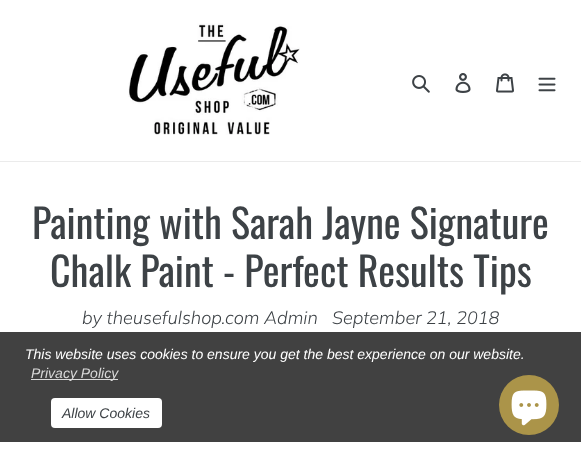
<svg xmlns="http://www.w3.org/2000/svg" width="581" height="456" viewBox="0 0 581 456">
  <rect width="100%" height="100%" fill="rgb(255,255,255)"/>
  <rect x="0" y="161" width="581" height="1" fill="rgb(235,235,235)"/>
  <image x="128" y="23" width="172" height="112" href="pic1.png"/>
  <image x="412" y="75" width="18" height="18" href="pic2.png"/>
  <image x="455" y="73" width="16" height="20" href="pic3.png"/>
  <image x="496" y="73" width="18" height="20" href="pic4.png"/>
  <image x="538" y="77" width="18" height="15" href="pic5.png"/>
  <g font-family="Oswald" font-size="40" fill="rgb(61,66,70)">
    <text x="32" y="239">Painting with Sarah Jayne Signature</text>
    <text x="50" y="287">Chalk Paint - Perfect Results Tips</text>
  </g>
  <g font-family="Muli" font-size="18" font-weight="300" font-style="italic" fill="rgb(61,66,70)">
    <text x="82" y="324">by theusefulshop.com Admin</text>
    <text x="332" y="324">September 21, 2018</text>
  </g>
  <rect x="0" y="332" width="581" height="110" fill="rgb(65,65,65)"/>
  <text x="25" y="359" font-family="Liberation Sans" font-size="14" font-style="italic" fill="rgb(255,255,255)">This website uses cookies to ensure you get the best experience on our website.</text>
  <rect x="31" y="379" width="87" height="1" fill="rgb(217,217,217)"/>
  <text x="31" y="378" font-family="Liberation Sans" font-size="14" font-style="italic" fill="rgb(217,217,217)">Privacy Policy</text>
  <rect x="51" y="398" width="111" height="30" rx="4" fill="rgb(255,255,255)"/>
  <text x="62" y="418" font-family="Liberation Sans" font-size="14" font-style="italic" fill="rgb(61,66,70)">Allow Cookies</text>
  <circle cx="529" cy="405" r="30" fill="rgb(171,148,73)"/>
  <image x="511" y="390" width="36" height="36" href="pic6.png"/>
</svg>
